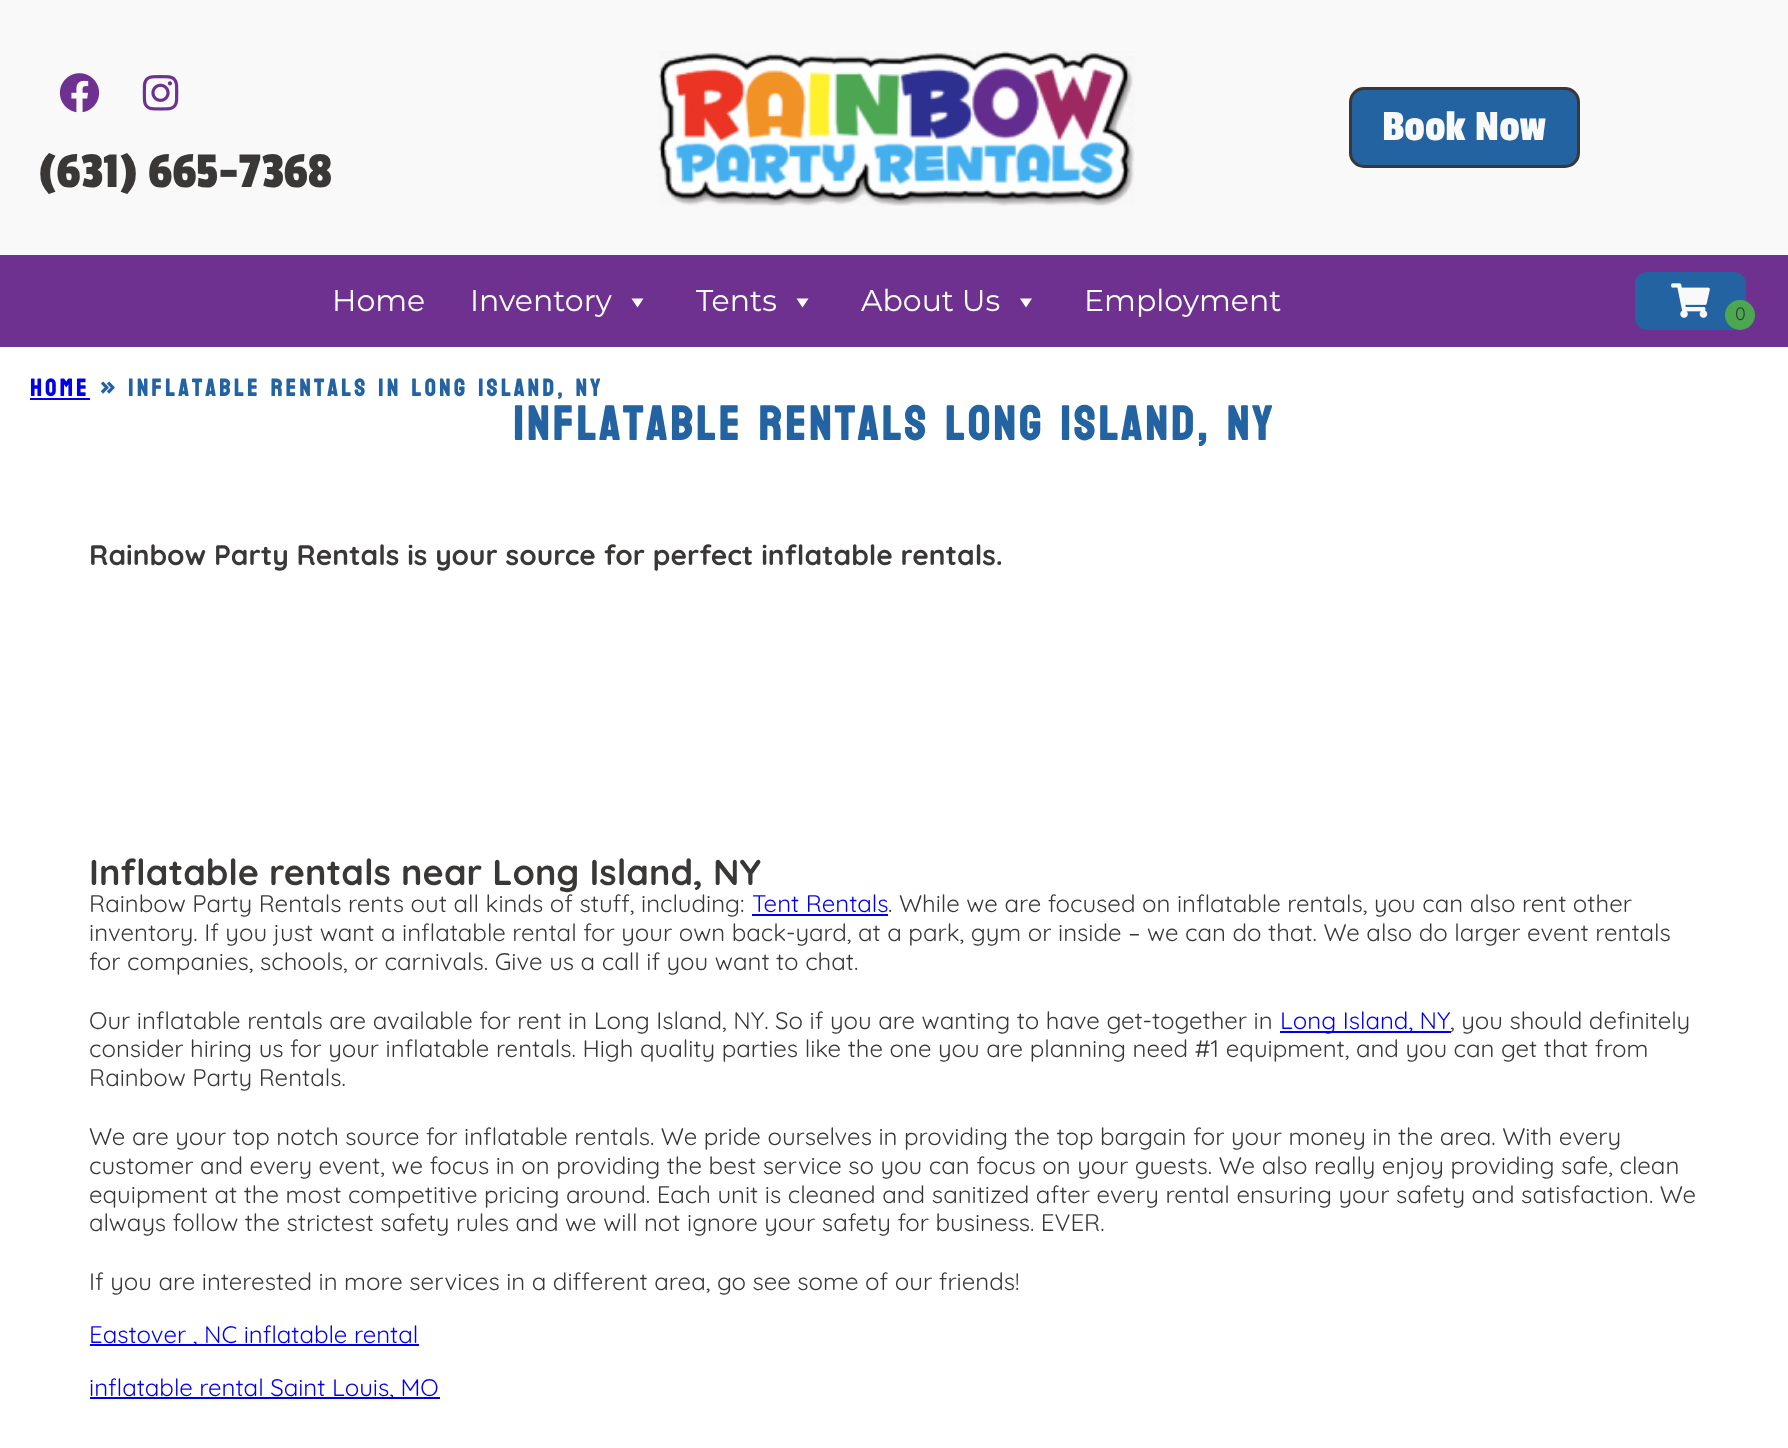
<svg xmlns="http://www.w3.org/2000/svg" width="1788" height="1448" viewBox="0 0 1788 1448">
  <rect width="100%" height="100%" fill="rgb(255,255,255)"/>
  <rect x="0" y="0" width="1788" height="255" fill="rgb(249,249,249)"/>
  <image x="658" y="51" width="477" height="155" href="pic1.png"/>
  <rect x="1350.5" y="88.5" width="228" height="78" rx="13.5" fill="rgb(35,99,162)" stroke="rgb(58,55,55)" stroke-width="3"/>
  <text x="1382" y="140" font-family="Passion One" font-size="45" fill="rgb(249,249,249)">Book Now</text>
  <image x="59" y="73" width="41" height="40" href="pic2.png"/>
  <image x="142" y="75" width="37" height="36" href="pic3.png"/>
  <text x="39" y="187" font-family="Passion One" font-size="52.5" fill="rgb(58,55,55)">(631) 665-7368</text>
  <rect x="0" y="255" width="1788" height="92" fill="rgb(111,49,144)"/>
  <g font-family="Montserrat" font-size="30" fill="rgb(255,255,255)">
    <text x="332" y="311">Home</text>
    <text x="470" y="311">Inventory</text>
  </g>
  <path d="M643.5 298.5L637.5 307.5L631.5 298.5Z" fill="rgb(255,255,255)"/>
  <text x="696" y="311" font-family="Montserrat" font-size="30" fill="rgb(255,255,255)">Tents</text>
  <path d="M808.5 298.5L802.5 307.5L796.5 298.5Z" fill="rgb(255,255,255)"/>
  <text x="861" y="311" font-family="Montserrat" font-size="30" fill="rgb(255,255,255)">About Us</text>
  <path d="M1032 298.5L1026 307.5L1020 298.5Z" fill="rgb(255,255,255)"/>
  <text x="1084" y="311" font-family="Montserrat" font-size="30" fill="rgb(255,255,255)">Employment</text>
  <rect x="1635" y="272" width="111" height="58" rx="12" fill="rgb(35,99,162)"/>
  <image x="1671" y="283" width="39" height="35" href="pic4.png"/>
  <circle cx="1740" cy="315" r="15" fill="rgb(75,168,80)"/>
  <text x="1735" y="320" font-family="Quicksand" font-size="18" fill="rgb(58,55,55)">0</text>
  <text x="30" y="396" font-family="Koulen" font-size="24" font-weight="bold" letter-spacing="3.6" fill="rgb(0,0,238)">Home</text>
  <rect x="30" y="398" width="60" height="2" fill="rgb(0,0,238)"/>
  <text x="100" y="396" font-family="Koulen" font-size="24" font-weight="bold" letter-spacing="3.6" fill="rgb(35,99,162)">» Inflatable rentals in Long Island, NY</text>
  <text x="513" y="440" font-family="Koulen" font-size="48" font-weight="bold" letter-spacing="3.6" fill="rgb(35,99,162)">Inflatable rentals Long Island, NY</text>
  <text x="89" y="565" font-family="Quicksand" font-size="28.1" font-weight="bold" fill="rgb(58,55,55)">Rainbow Party Rentals is your source for perfect inflatable rentals.</text>
  <text x="89" y="885" font-family="Quicksand" font-size="36" font-weight="bold" fill="rgb(58,55,55)">Inflatable rentals near Long Island, NY</text>
  <text x="89" y="912" font-family="Quicksand" font-size="24" fill="rgb(58,55,55)">Rainbow Party Rentals rents out all kinds of stuff, including:</text>
  <text x="752" y="912" font-family="Quicksand" font-size="24" fill="rgb(0,0,238)">Tent Rentals</text>
  <rect x="752" y="914" width="136" height="2" fill="rgb(0,0,238)"/>
  <g font-family="Quicksand" font-size="24" fill="rgb(58,55,55)">
    <text x="888" y="912">. While we are focused on inflatable rentals, you can also rent other</text>
    <text>
      <tspan x="89" y="941">inventory. If you just want a inflatable rental for your own back-yard, at a park, gym or inside – we can do that. We also do larger event rentals</tspan>
      <tspan x="89" y="970">for companies, schools, or carnivals. Give us a call if you want to chat.</tspan>
    </text>
    <text x="89" y="1029">Our inflatable rentals are available for rent in Long Island, NY. So if you are wanting to have get-together in</text>
  </g>
  <rect x="1280" y="1031" width="171" height="2" fill="rgb(0,0,238)"/>
  <text x="1280" y="1029" font-family="Quicksand" font-size="24" fill="rgb(0,0,238)">Long Island, NY</text>
  <g font-family="Quicksand" font-size="24" fill="rgb(58,55,55)">
    <text x="1450" y="1029">, you should definitely</text>
    <text>
      <tspan x="89" y="1057">consider hiring us for your inflatable rentals. High quality parties like the one you are planning need #1 equipment, and you can get that from</tspan>
      <tspan x="89" y="1086">Rainbow Party Rentals.</tspan>
    </text>
    <text>
      <tspan x="89" y="1145">We are your top notch source for inflatable rentals. We pride ourselves in providing the top bargain for your money in the area. With every</tspan>
      <tspan x="89" y="1174">customer and every event, we focus in on providing the best service so you can focus on your guests. We also really enjoy providing safe, clean</tspan>
      <tspan x="89" y="1203">equipment at the most competitive pricing around. Each unit is cleaned and sanitized after every rental ensuring your safety and satisfaction. We</tspan>
      <tspan x="89" y="1231">always follow the strictest safety rules and we will not ignore your safety for business. EVER.</tspan>
    </text>
    <text x="89" y="1290">If you are interested in more services in a different area, go see some of our friends!</text>
  </g>
  <rect x="90" y="1344" width="329" height="2" fill="rgb(0,0,238)"/>
  <text x="89" y="1343" font-family="Quicksand" font-size="24" fill="rgb(0,0,238)">Eastover , NC inflatable rental</text>
  <rect x="90" y="1397" width="350" height="2" fill="rgb(0,0,238)"/>
  <text x="89" y="1396" font-family="Quicksand" font-size="24" fill="rgb(0,0,238)">inflatable rental Saint Louis, MO</text>
</svg>
